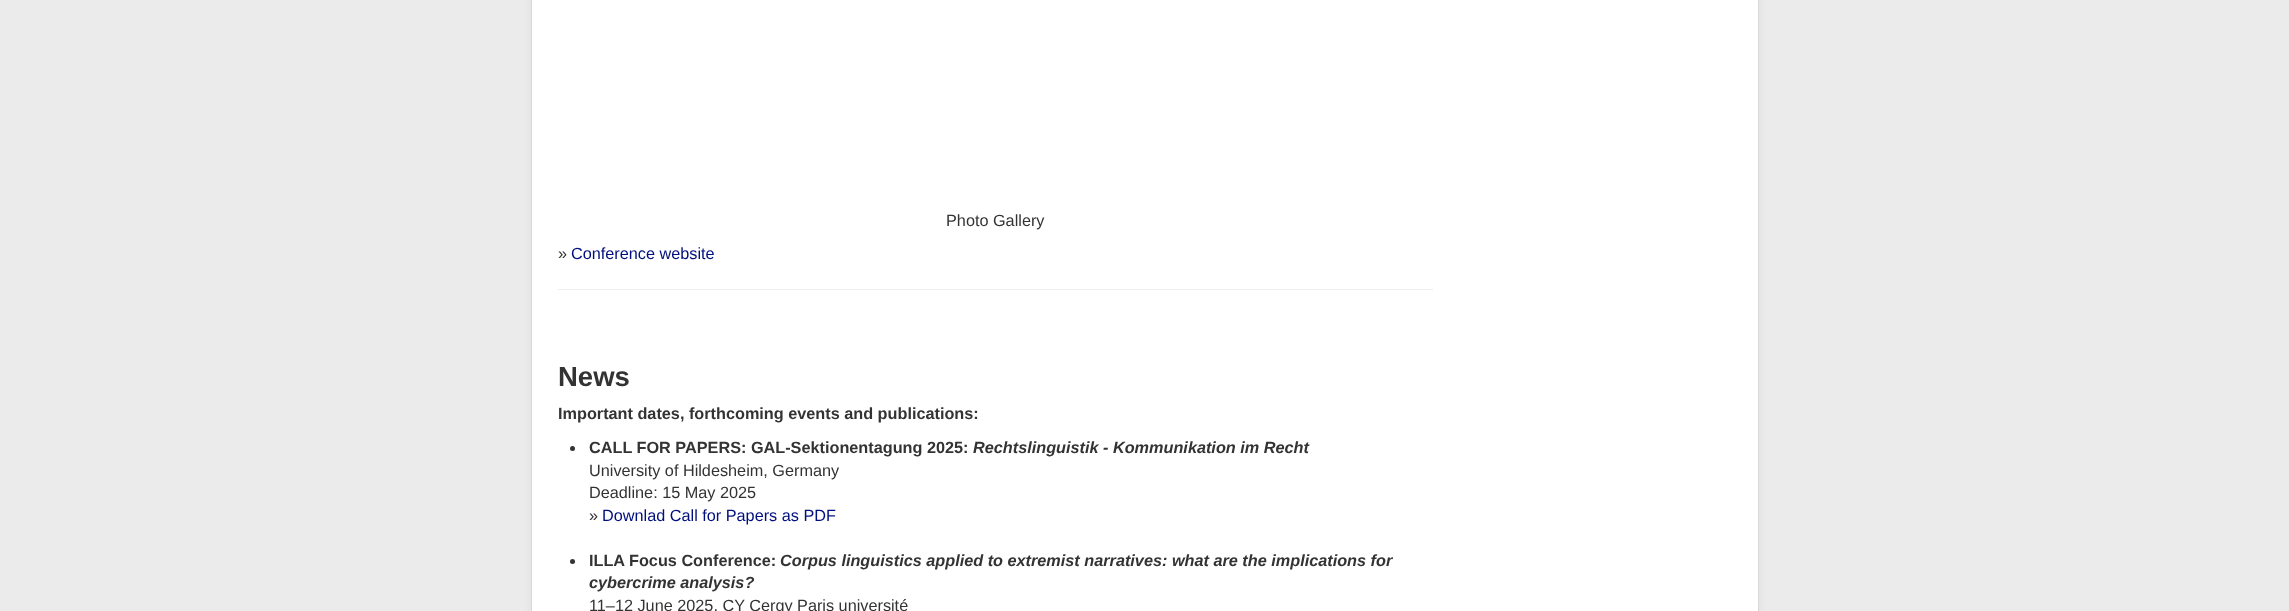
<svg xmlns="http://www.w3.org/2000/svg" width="2289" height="611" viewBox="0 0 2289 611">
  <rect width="100%" height="100%" fill="rgb(235,235,235)"/>
  <rect x="531" y="-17" width="1228" height="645" rx="5" fill="rgba(0,0,0,0.05)" filter="blur(4px)"/>
  <rect x="531.5" y="-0.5" width="1227" height="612" fill="rgb(255,255,255)" stroke="rgb(217,217,217)"/>
  <g font-family="Liberation Sans" font-size="16.25" fill="rgb(51,51,51)">
    <text x="946" y="226">Photo Gallery</text>
    <text x="558" y="259">»</text>
  </g>
  <text x="571" y="259" font-family="Liberation Sans" font-size="16.25" fill="rgb(0,15,125)">Conference website</text>
  <rect x="558" y="289" width="875" height="1" fill="rgb(238,238,238)"/>
  <text x="558" y="386" font-family="Liberation Sans" font-size="27.5" font-weight="bold" fill="rgb(51,51,51)">News</text>
  <text x="558" y="419" font-family="Liberation Sans" font-size="16.25" font-weight="bold" fill="rgb(51,51,51)">Important dates, forthcoming events and publications:</text>
  <circle cx="572.5" cy="448.5" r="2.5" fill="rgb(51,51,51)"/>
  <text x="589" y="453" font-family="Liberation Sans" font-size="16.25" font-weight="bold" fill="rgb(51,51,51)">CALL FOR PAPERS: GAL-Sektionentagung 2025:</text>
  <text x="973" y="453" font-family="Liberation Sans" font-size="16.25" font-weight="bold" font-style="italic" fill="rgb(51,51,51)">Rechtslinguistik - Kommunikation im Recht</text>
  <g font-family="Liberation Sans" font-size="16.25" fill="rgb(51,51,51)">
    <text>
      <tspan x="589" y="476">University of Hildesheim, Germany</tspan>
      <tspan x="589" y="498">Deadline: 15 May 2025</tspan>
      <tspan x="589" y="521">»</tspan>
    </text>
  </g>
  <text x="602" y="521" font-family="Liberation Sans" font-size="16.25" fill="rgb(0,15,125)">Downlad Call for Papers as PDF</text>
  <circle cx="572.5" cy="561.5" r="2.5" fill="rgb(51,51,51)"/>
  <text x="589" y="566" font-family="Liberation Sans" font-size="16.25" font-weight="bold" fill="rgb(51,51,51)">ILLA Focus Conference:</text>
  <g font-family="Liberation Sans" font-size="16.25" font-weight="bold" font-style="italic" fill="rgb(51,51,51)">
    <text x="780" y="566">Corpus linguistics applied to extremist narratives: what are the implications for</text>
    <text x="589" y="588">cybercrime analysis?</text>
  </g>
  <text x="589" y="611" font-family="Liberation Sans" font-size="16.25" fill="rgb(51,51,51)">11–12 June 2025, CY Cergy Paris université</text>
</svg>
